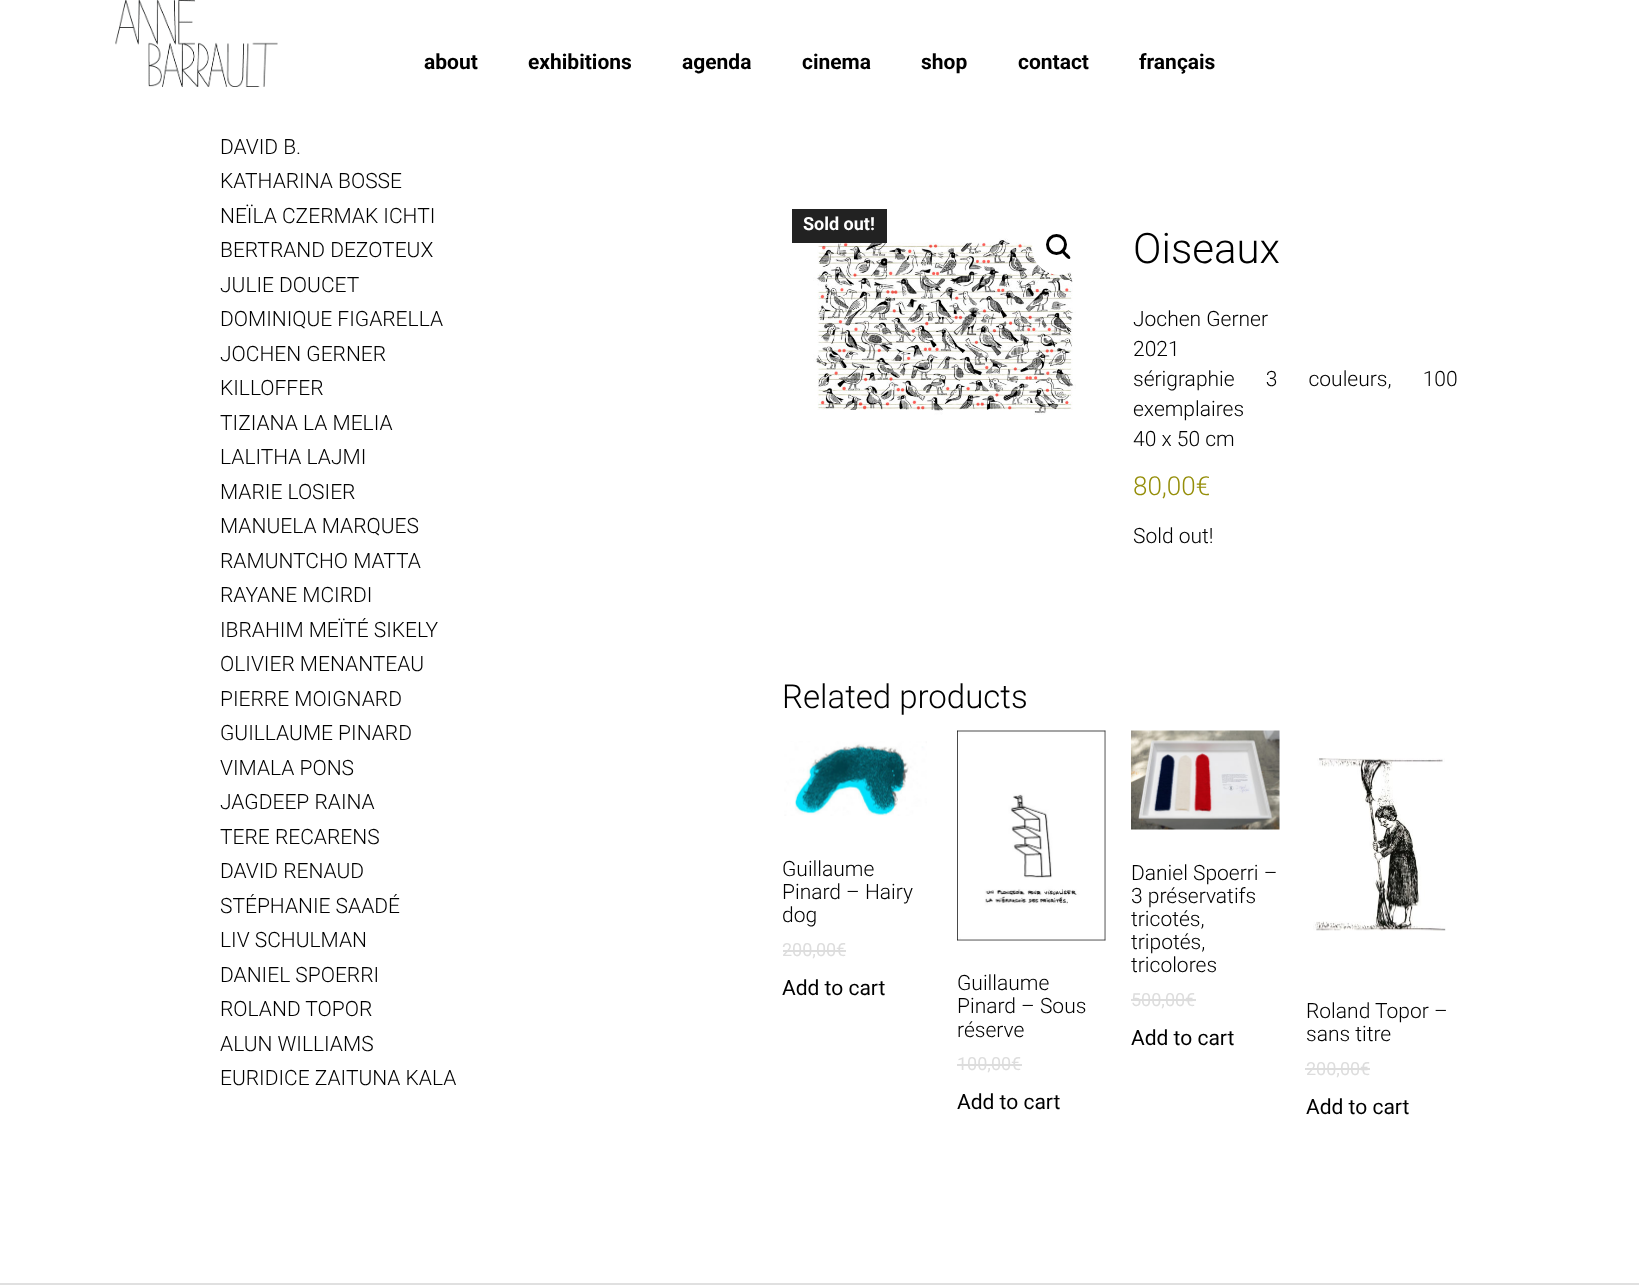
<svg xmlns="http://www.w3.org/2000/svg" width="1639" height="1288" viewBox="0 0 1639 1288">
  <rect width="100%" height="100%" fill="rgb(255,255,255)"/>
  <image x="115" y="0" width="163" height="87" href="pic1.png"/>
  <g font-family="Roboto" font-size="21" font-weight="bold" fill="rgb(0,0,0)">
    <text x="424" y="69">about</text>
    <text x="528" y="69">exhibitions</text>
    <text x="682" y="69">agenda</text>
    <text x="802" y="69">cinema</text>
    <text x="921" y="69">shop</text>
    <text x="1018" y="69">contact</text>
    <text x="1139" y="69">français</text>
  </g>
  <g font-family="Roboto" font-size="21" font-weight="300" fill="rgb(0,0,0)">
    <text>
      <tspan x="220" y="154">DAVID B.</tspan>
      <tspan x="220" y="188">KATHARINA BOSSE</tspan>
      <tspan x="220" y="223">NEÏLA CZERMAK ICHTI</tspan>
      <tspan x="220" y="257">BERTRAND DEZOTEUX</tspan>
      <tspan x="220" y="292">JULIE DOUCET</tspan>
      <tspan x="220" y="326">DOMINIQUE FIGARELLA</tspan>
      <tspan x="220" y="361">JOCHEN GERNER</tspan>
      <tspan x="220" y="395">KILLOFFER</tspan>
      <tspan x="220" y="430">TIZIANA LA MELIA</tspan>
      <tspan x="220" y="464">LALITHA LAJMI</tspan>
      <tspan x="220" y="499">MARIE LOSIER</tspan>
      <tspan x="220" y="533">MANUELA MARQUES</tspan>
      <tspan x="220" y="568">RAMUNTCHO MATTA</tspan>
      <tspan x="220" y="602">RAYANE MCIRDI</tspan>
      <tspan x="220" y="637">IBRAHIM MEÏTÉ SIKELY</tspan>
      <tspan x="220" y="671">OLIVIER MENANTEAU</tspan>
      <tspan x="220" y="706">PIERRE MOIGNARD</tspan>
      <tspan x="220" y="740">GUILLAUME PINARD</tspan>
      <tspan x="220" y="775">VIMALA PONS</tspan>
      <tspan x="220" y="809">JAGDEEP RAINA</tspan>
      <tspan x="220" y="844">TERE RECARENS</tspan>
      <tspan x="220" y="878">DAVID RENAUD</tspan>
      <tspan x="220" y="913">STÉPHANIE SAADÉ</tspan>
      <tspan x="220" y="947">LIV SCHULMAN</tspan>
      <tspan x="220" y="982">DANIEL SPOERRI</tspan>
      <tspan x="220" y="1016">ROLAND TOPOR</tspan>
      <tspan x="220" y="1051">ALUN WILLIAMS</tspan>
      <tspan x="220" y="1085">EURIDICE ZAITUNA KALA</tspan>
    </text>
  </g>
  <image x="813" y="238" width="263" height="177" href="pic2.png"/>
  <rect x="792" y="209" width="95" height="34" fill="rgb(34,34,34)"/>
  <text x="803" y="230" font-family="Roboto" font-size="18" font-weight="bold" fill="rgb(255,255,255)">Sold out!</text>
  <circle cx="1059" cy="248" r="27" fill="rgb(255,255,255)"/>
  <circle cx="1056.5" cy="244.5" r="9" fill="none" stroke="rgb(0,0,0)" stroke-width="3"/>
  <path d="M1061.5 250C1063 248.5 1066 252.5 1067 253.5C1067.5 254 1071.5 257 1070 258.5C1068.5 260.5 1065.5 256.5 1064.5 255.5C1064 254.5 1060 252 1061.5 250Z" fill="rgb(0,0,0)"/>
  <text x="1133" y="263" font-family="Roboto" font-size="42" font-weight="300" fill="rgb(0,0,0)">Oiseaux</text>
  <g font-family="Roboto" font-size="21" font-weight="300" fill="rgb(0,0,0)">
    <text>
      <tspan x="1133" y="326">Jochen Gerner</tspan>
      <tspan x="1133" y="356">2021</tspan>
      <tspan x="1133" y="386" word-spacing="26">sérigraphie 3 couleurs, 100</tspan>
      <tspan x="1133" y="416">exemplaires</tspan>
      <tspan x="1133" y="446">40 x 50 cm</tspan>
    </text>
  </g>
  <text x="1133" y="495" font-family="Roboto" font-size="26" font-weight="300" fill="rgb(149,142,9)">80,00€</text>
  <text x="1133" y="543" font-family="Roboto" font-size="21" font-weight="300" fill="rgb(0,0,0)">Sold out!</text>
  <text x="782" y="708" font-family="Roboto" font-size="33" font-weight="300" fill="rgb(0,0,0)">Related products</text>
  <image x="784" y="741" width="143" height="75" href="pic3.png"/>
  <g font-family="Roboto" font-size="21" font-weight="300" fill="rgb(0,0,0)">
    <text>
      <tspan x="782" y="876">Guillaume</tspan>
      <tspan x="782" y="899">Pinard – Hairy</tspan>
      <tspan x="782" y="922">dog</tspan>
    </text>
  </g>
  <text x="782" y="956" font-family="Roboto" font-size="18" fill="rgb(221,221,221)">200,00€</text>
  <rect x="783" y="950" width="63" height="2" fill="rgb(221,221,221)"/>
  <text x="782" y="995" font-family="Roboto" font-size="21" fill="rgb(0,0,0)">Add to cart</text>
  <image x="957" y="730" width="149" height="211" href="pic4.png"/>
  <g font-family="Roboto" font-size="21" font-weight="300" fill="rgb(0,0,0)">
    <text>
      <tspan x="957" y="990">Guillaume</tspan>
      <tspan x="957" y="1013">Pinard – Sous</tspan>
      <tspan x="957" y="1037">réserve</tspan>
    </text>
  </g>
  <text x="957" y="1070" font-family="Roboto" font-size="18" fill="rgb(221,221,221)">100,00€</text>
  <rect x="957" y="1064" width="65" height="2" fill="rgb(221,221,221)"/>
  <text x="957" y="1109" font-family="Roboto" font-size="21" fill="rgb(0,0,0)">Add to cart</text>
  <image x="1131" y="730" width="149" height="100" href="pic5.png"/>
  <g font-family="Roboto" font-size="21" font-weight="300" fill="rgb(0,0,0)">
    <text>
      <tspan x="1131" y="880">Daniel Spoerri –</tspan>
      <tspan x="1131" y="903">3 préservatifs</tspan>
      <tspan x="1131" y="926">tricotés,</tspan>
      <tspan x="1131" y="949">tripotés,</tspan>
      <tspan x="1131" y="972">tricolores</tspan>
    </text>
  </g>
  <text x="1131" y="1006" font-family="Roboto" font-size="18" fill="rgb(221,221,221)">500,00€</text>
  <rect x="1131" y="999" width="65" height="2" fill="rgb(221,221,221)"/>
  <text x="1131" y="1045" font-family="Roboto" font-size="21" fill="rgb(0,0,0)">Add to cart</text>
  <image x="1313" y="758" width="133" height="173" href="pic6.png"/>
  <g font-family="Roboto" font-size="21" font-weight="300" fill="rgb(0,0,0)">
    <text>
      <tspan x="1306" y="1018">Roland Topor –</tspan>
      <tspan x="1306" y="1041">sans titre</tspan>
    </text>
  </g>
  <text x="1306" y="1075" font-family="Roboto" font-size="18" fill="rgb(221,221,221)">200,00€</text>
  <rect x="1305" y="1068" width="65" height="2" fill="rgb(221,221,221)"/>
  <text x="1306" y="1114" font-family="Roboto" font-size="21" fill="rgb(0,0,0)">Add to cart</text>
  <rect x="0" y="1283" width="1639" height="2" fill="rgb(224,224,224)"/>
</svg>
